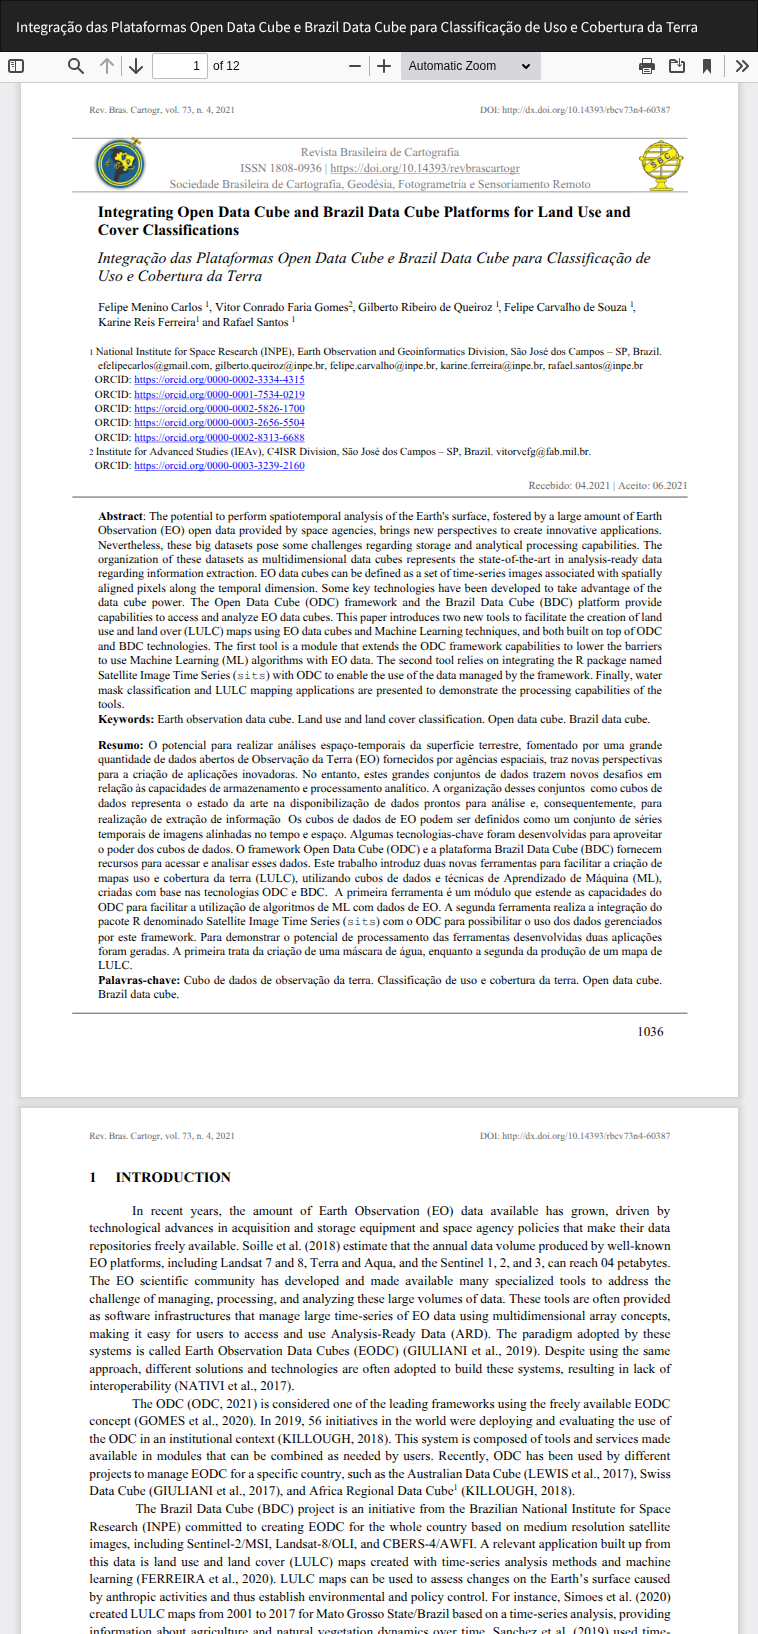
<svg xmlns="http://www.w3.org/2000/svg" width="758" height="1634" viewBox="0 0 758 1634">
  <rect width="100%" height="100%" fill="rgb(255,255,255)"/>
  <rect x="0.5" y="0.5" width="757" height="51" fill="rgb(34,34,34)" stroke="rgb(18,18,18)"/>
  <text x="16" y="32" font-family="Source Sans Pro" font-size="15" fill="rgb(255,255,255)">Integração das Plataformas Open Data Cube e Brazil Data Cube para Classificação de Uso e Cobertura da Terra</text>
  <image x="0" y="52" width="758" height="1582" href="pic1.png"/>
</svg>
